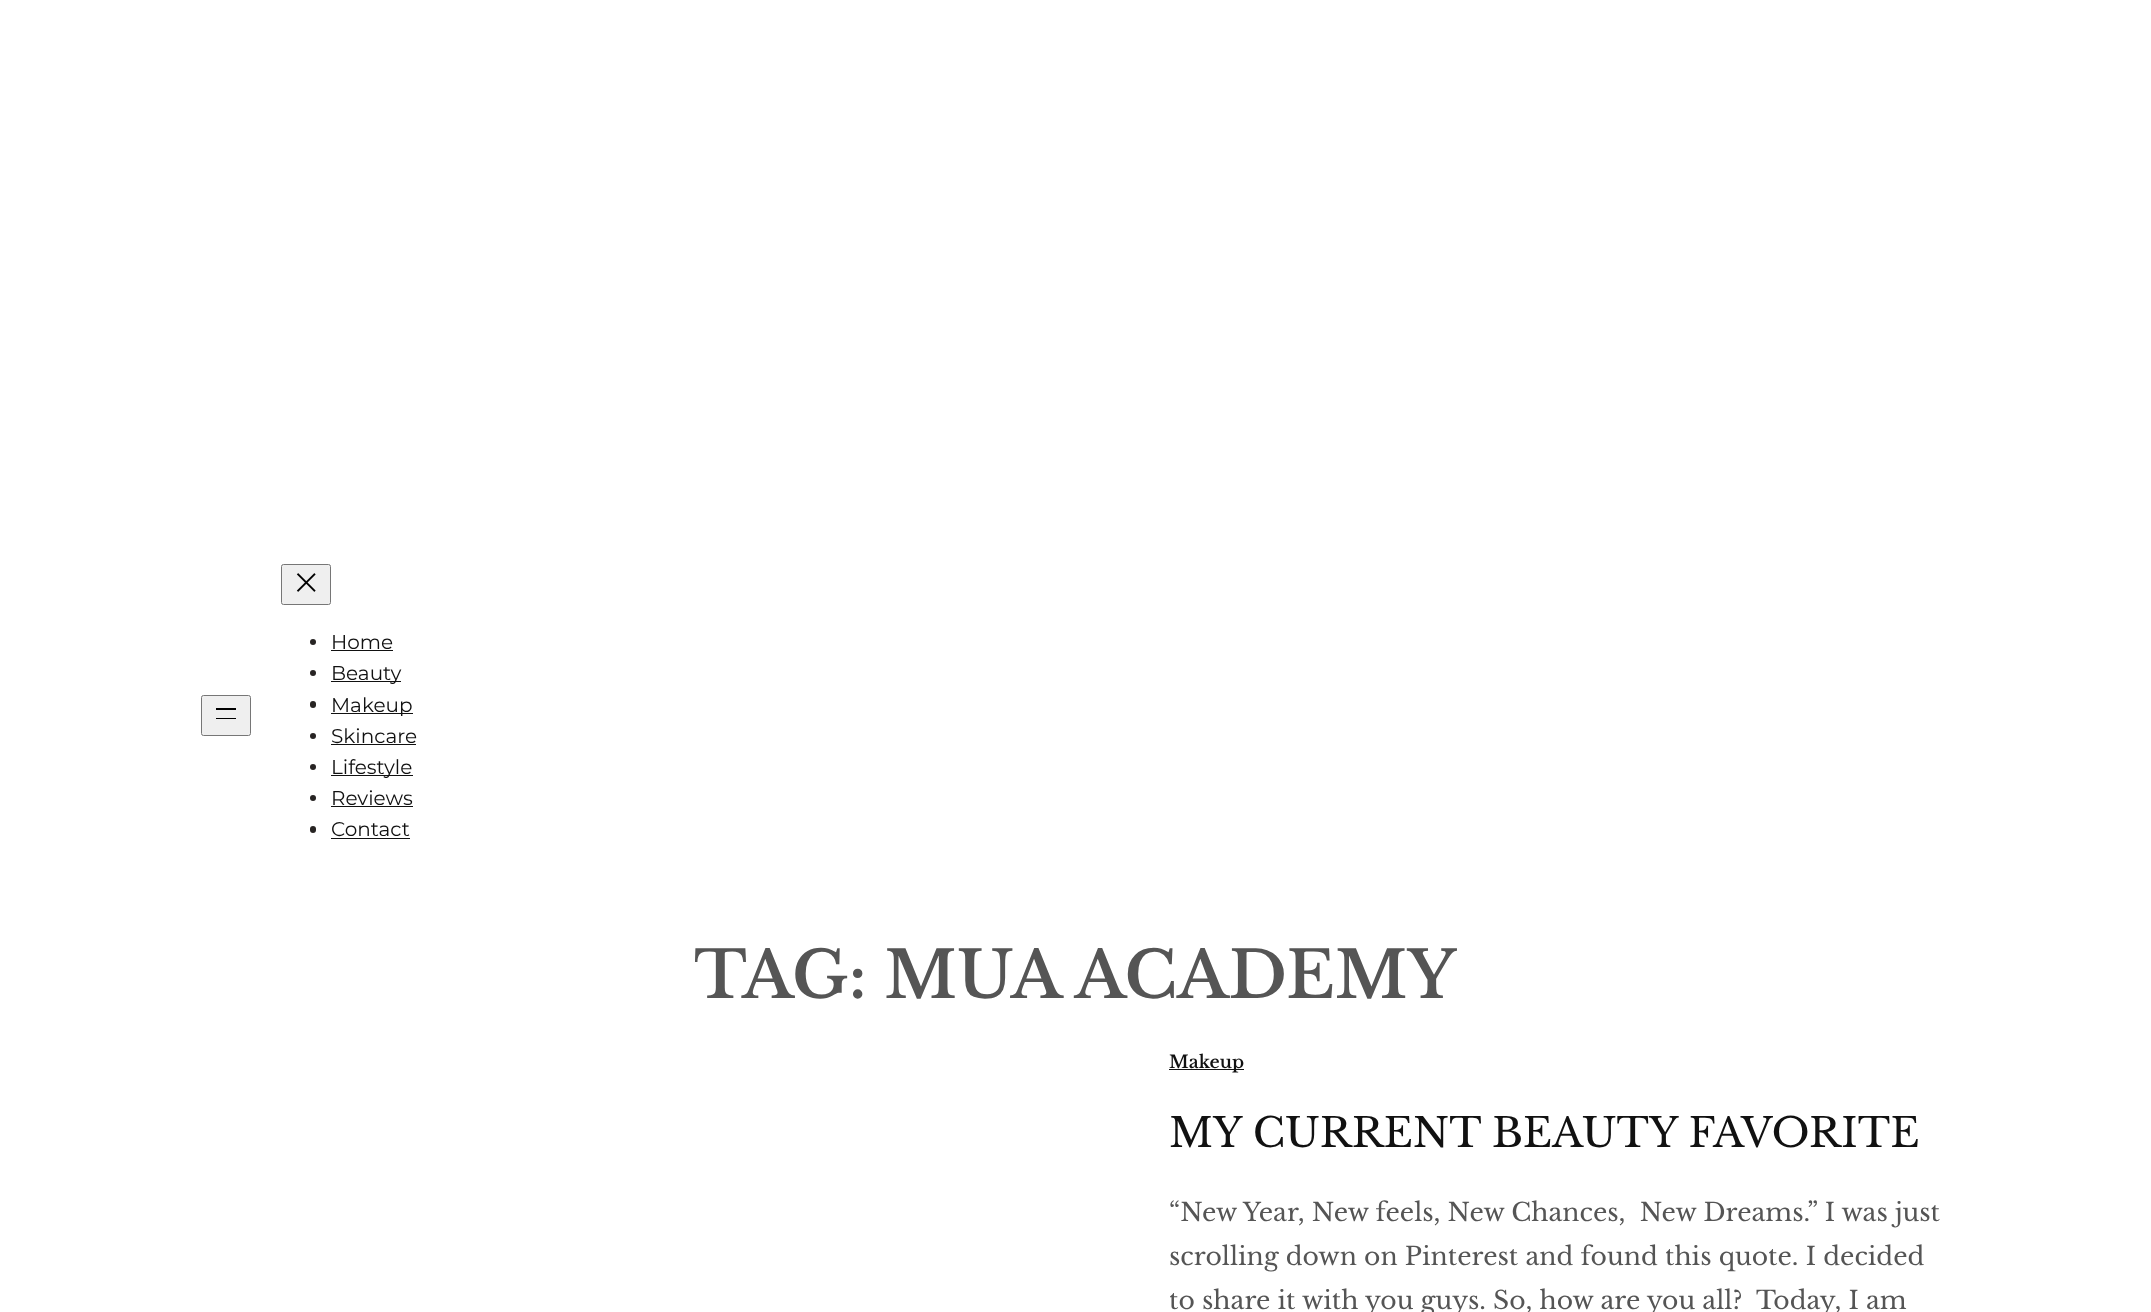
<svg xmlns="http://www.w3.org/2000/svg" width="2151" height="1312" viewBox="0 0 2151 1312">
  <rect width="100%" height="100%" fill="rgb(255,255,255)"/>
  <rect x="201.5" y="695.5" width="49" height="40" rx="2" fill="rgb(239,239,239)" stroke="rgb(118,118,118)"/>
  <rect x="216" y="708" width="20" height="2" fill="rgb(0,0,0)"/>
  <rect x="216" y="718" width="20" height="1" fill="rgb(0,0,0)"/>
  <rect x="281.5" y="564.5" width="49" height="40" rx="2" fill="rgb(239,239,239)" stroke="rgb(118,118,118)"/>
  <image x="296" y="573" width="20" height="19" href="pic1.png"/>
  <circle cx="313" cy="642" r="3" fill="rgb(39,36,35)"/>
  <text x="331" y="649" font-family="Montserrat" font-size="20" fill="rgb(17,17,17)">Home</text>
  <rect x="331" y="650" width="62" height="1" fill="rgb(17,17,17)"/>
  <circle cx="313" cy="673" r="3" fill="rgb(39,36,35)"/>
  <rect x="331" y="681" width="70" height="1" fill="rgb(17,17,17)"/>
  <text x="331" y="680" font-family="Montserrat" font-size="20" fill="rgb(17,17,17)">Beauty</text>
  <rect x="310" y="701" width="6" height="7" rx="3" fill="rgb(39,36,35)"/>
  <rect x="331" y="713" width="82" height="1" fill="rgb(17,17,17)"/>
  <text x="331" y="712" font-family="Montserrat" font-size="20" fill="rgb(17,17,17)">Makeup</text>
  <circle cx="313" cy="736" r="3" fill="rgb(39,36,35)"/>
  <text x="331" y="743" font-family="Montserrat" font-size="20" fill="rgb(17,17,17)">Skincare</text>
  <rect x="331" y="744" width="85" height="1" fill="rgb(17,17,17)"/>
  <circle cx="313" cy="767" r="3" fill="rgb(39,36,35)"/>
  <rect x="331" y="775" width="82" height="1" fill="rgb(17,17,17)"/>
  <text x="331" y="774" font-family="Montserrat" font-size="20" fill="rgb(17,17,17)">Lifestyle</text>
  <circle cx="313" cy="798" r="3" fill="rgb(39,36,35)"/>
  <text x="331" y="805" font-family="Montserrat" font-size="20" fill="rgb(17,17,17)">Reviews</text>
  <rect x="331" y="806" width="82" height="1" fill="rgb(17,17,17)"/>
  <rect x="310" y="826" width="6" height="7" rx="3" fill="rgb(39,36,35)"/>
  <text x="331" y="836" font-family="Montserrat" font-size="20" fill="rgb(17,17,17)">Contact</text>
  <rect x="331" y="838" width="79" height="1" fill="rgb(17,17,17)"/>
  <text x="694" y="998" font-family="Libre Baskerville" font-size="64.5" font-weight="600" fill="rgb(85,85,85)">TAG: MUA ACADEMY</text>
  <rect x="1169" y="1069" width="75" height="1" fill="rgb(17,17,17)"/>
  <text x="1169" y="1068" font-family="Libre Baskerville" font-size="17.5" font-weight="600" fill="rgb(17,17,17)">Makeup</text>
  <text x="1169" y="1147" font-family="Libre Baskerville" font-size="40.4" fill="rgb(17,17,17)">MY CURRENT BEAUTY FAVORITE</text>
  <g font-family="Libre Baskerville" font-size="25" fill="rgb(85,85,85)">
    <text xml:space="preserve"><tspan x="1169" y="1221">“New Year, New feels, New Chances,  New Dreams.” I was just</tspan><tspan x="1169" y="1265">scrolling down on Pinterest and found this quote. I decided</tspan><tspan x="1169" y="1309">to share it with you guys. So, how are you all?  Today, I am</tspan></text>
  </g>
</svg>
